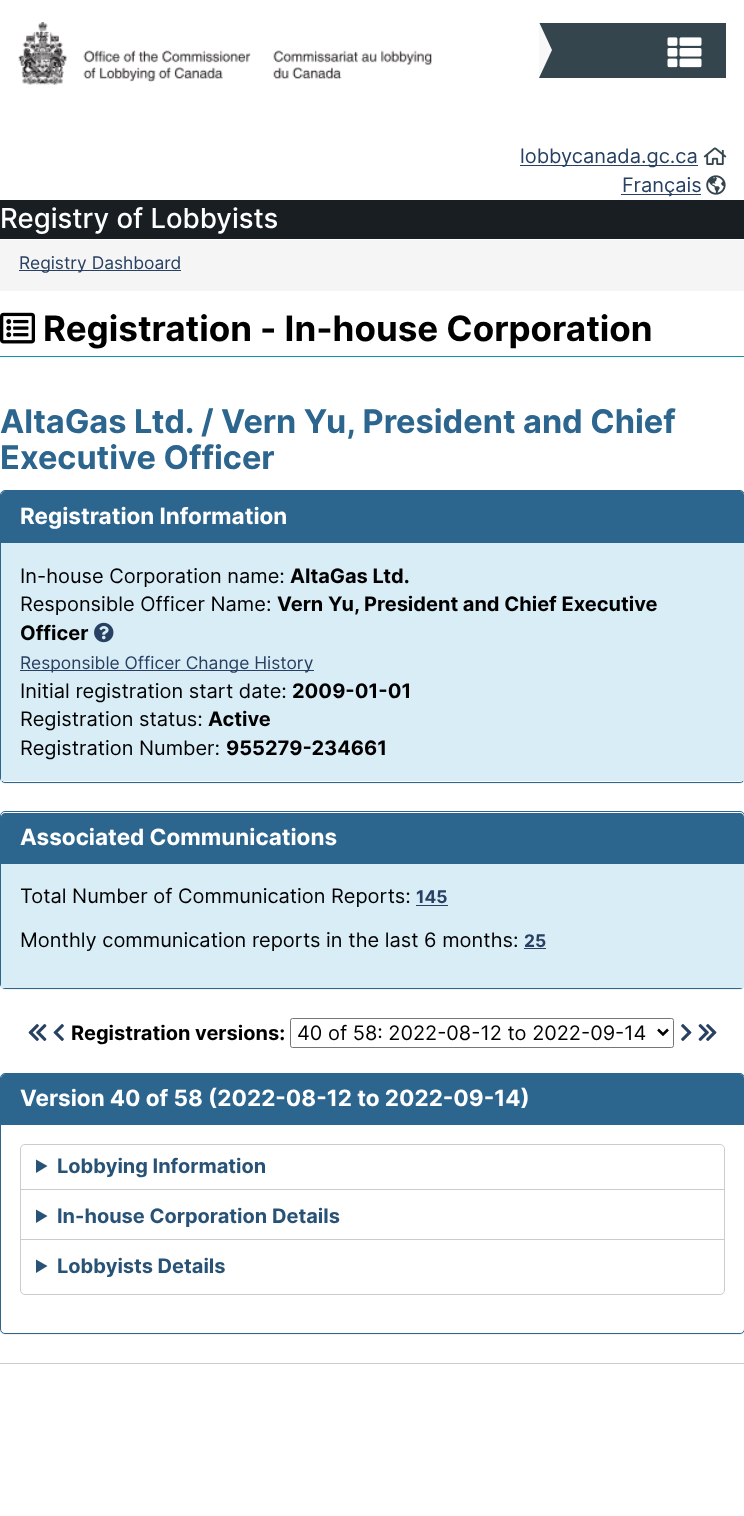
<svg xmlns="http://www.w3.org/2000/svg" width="744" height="1516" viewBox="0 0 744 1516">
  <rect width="100%" height="100%" fill="rgb(255,255,255)"/>
  <image x="18" y="22" width="414" height="63" href="pic1.png"/>
  <rect x="539" y="23" width="187" height="55" fill="rgb(53,69,78)"/>
  <path d="M539 78V22L552 50Z" fill="rgb(248,248,248)"/>
  <image x="667" y="37" width="35" height="31" href="pic2.png"/>
  <rect x="520" y="165" width="178" height="1" fill="rgb(40,65,98)"/>
  <text x="520" y="163" font-family="Inter" font-size="20" fill="rgb(40,65,98)">lobbycanada.gc.ca</text>
  <image x="703" y="147" width="24" height="18" href="pic3.png"/>
  <rect x="621" y="194" width="80" height="1" fill="rgb(40,65,98)"/>
  <text x="622" y="192" font-family="Inter" font-size="20" fill="rgb(40,65,98)">Français</text>
  <image x="706" y="175" width="20" height="20" href="pic4.png"/>
  <rect x="0" y="200" width="744" height="39" fill="rgb(25,30,35)"/>
  <text x="0" y="228" font-family="Inter" font-size="27.5" font-weight="500" fill="rgb(255,255,255)">Registry of Lobbyists</text>
  <rect x="0" y="240" width="744" height="51" fill="rgb(245,245,245)"/>
  <rect x="19" y="270" width="162" height="1" fill="rgb(40,65,98)"/>
  <text x="19" y="269" font-family="Inter" font-size="17.4" fill="rgb(40,65,98)">Registry Dashboard</text>
  <rect x="0" y="356" width="744" height="1" fill="rgb(10,149,170)"/>
  <image x="0" y="312" width="35" height="32" href="pic5.png"/>
  <text x="43" y="341" font-family="Inter" font-size="35" font-weight="bold" fill="rgb(0,0,0)">Registration - In-house Corporation</text>
  <g font-family="Inter" font-size="32.5" font-weight="bold" fill="rgb(44,101,142)">
    <text>
      <tspan x="0" y="433">AltaGas Ltd. / Vern Yu, President and Chief</tspan>
      <tspan x="0" y="469">Executive Officer</tspan>
    </text>
  </g>
  <rect x="0" y="491" width="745" height="293" rx="5" fill="rgba(0,0,0,0.05)" filter="blur(0.5px)"/>
  <rect x="0.5" y="490.5" width="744" height="292" rx="4.5" fill="rgb(255,255,255)" stroke="rgb(44,101,142)"/>
  <path d="M5 491H740C742 491 744 493 744 495V543H1V495C1 493 3 491 5 491Z" fill="rgb(44,101,142)"/>
  <text x="20" y="524" font-family="Inter" font-size="22.5" font-weight="bold" fill="rgb(255,255,255)">Registration Information</text>
  <rect x="1" y="543" width="743" height="238" fill="rgb(217,237,247)"/>
  <text x="20" y="583" font-family="Inter" font-size="20" fill="rgb(0,0,0)">In-house Corporation name:</text>
  <text x="290" y="583" font-family="Inter" font-size="20" font-weight="bold" fill="rgb(0,0,0)">AltaGas Ltd.</text>
  <text x="20" y="611" font-family="Inter" font-size="20" fill="rgb(0,0,0)">Responsible Officer Name:</text>
  <g font-family="Inter" font-size="20" font-weight="bold" fill="rgb(0,0,0)">
    <text x="277" y="611">Vern Yu, President and Chief Executive</text>
    <text x="20" y="640">Officer</text>
  </g>
  <image x="94" y="622" width="20" height="21" href="pic6.png"/>
  <rect x="20" y="670" width="294" height="1" fill="rgb(40,65,98)"/>
  <text x="20" y="669" font-family="Inter" font-size="17.4" fill="rgb(40,65,98)">Responsible Officer Change History</text>
  <text x="20" y="698" font-family="Inter" font-size="20" fill="rgb(0,0,0)">Initial registration start date:</text>
  <text x="292" y="698" font-family="Inter" font-size="20" font-weight="bold" fill="rgb(0,0,0)">2009-01-01</text>
  <text x="20" y="726" font-family="Inter" font-size="20" fill="rgb(0,0,0)">Registration status:</text>
  <text x="208" y="726" font-family="Inter" font-size="20" font-weight="bold" fill="rgb(0,0,0)">Active</text>
  <text x="20" y="755" font-family="Inter" font-size="20" fill="rgb(0,0,0)">Registration Number:</text>
  <text x="226" y="755" font-family="Inter" font-size="20" font-weight="bold" fill="rgb(0,0,0)">955279-234661</text>
  <rect x="0" y="813" width="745" height="177" rx="5" fill="rgba(0,0,0,0.05)" filter="blur(0.5px)"/>
  <rect x="0.5" y="811.5" width="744" height="177" rx="4.5" fill="rgb(255,255,255)" stroke="rgb(44,101,142)"/>
  <path d="M5 813H740C742 813 744 815 744 817V864H1V817C1 815 3 813 5 813Z" fill="rgb(44,101,142)"/>
  <text x="20" y="845" font-family="Inter" font-size="22.5" font-weight="bold" fill="rgb(255,255,255)">Associated Communications</text>
  <rect x="1" y="864" width="743" height="124" fill="rgb(217,237,247)"/>
  <text x="20" y="903" font-family="Inter" font-size="20" fill="rgb(0,0,0)">Total Number of Communication Reports:</text>
  <text x="416" y="903" font-family="Inter" font-size="17.4" font-weight="bold" fill="rgb(40,65,98)">145</text>
  <rect x="416" y="905" width="32" height="1" fill="rgb(40,65,98)"/>
  <text x="20" y="947" font-family="Inter" font-size="20" fill="rgb(0,0,0)">Monthly communication reports in the last 6 months:</text>
  <text x="524" y="947" font-family="Inter" font-size="17.4" font-weight="bold" fill="rgb(40,65,98)">25</text>
  <rect x="524" y="948" width="22" height="1" fill="rgb(40,65,98)"/>
  <image x="28" y="1024" width="19" height="17" href="pic7.png"/>
  <image x="53" y="1024" width="11" height="17" href="pic8.png"/>
  <text x="71" y="1040" font-family="Inter" font-size="20" font-weight="bold" fill="rgb(0,0,0)">Registration versions:</text>
  <rect x="290.5" y="1018.5" width="383" height="29" rx="2" fill="none" stroke="rgb(118,118,118)"/>
  <path d="M658 1029.5L663 1034.5L668 1029.5" fill="none" stroke="rgb(0,0,0)" stroke-width="2.5"/>
  <text x="297" y="1040" font-family="Inter" font-size="20" fill="rgb(0,0,0)">40 of 58: 2022-08-12 to 2022-09-14</text>
  <image x="681" y="1024" width="11" height="17" href="pic9.png"/>
  <image x="698" y="1024" width="19" height="17" href="pic10.png"/>
  <rect x="0" y="1074" width="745" height="261" rx="5" fill="rgba(0,0,0,0.05)" filter="blur(0.5px)"/>
  <rect x="0.5" y="1073.5" width="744" height="260" rx="4.5" fill="rgb(255,255,255)" stroke="rgb(44,101,142)"/>
  <path d="M5 1074H740C742 1074 744 1076 744 1078V1125H1V1078C1 1076 3 1074 5 1074Z" fill="rgb(44,101,142)"/>
  <text x="20" y="1106" font-family="Inter" font-size="22.5" font-weight="bold" fill="rgb(255,255,255)">Version 40 of 58 (2022-08-12 to 2022-09-14)</text>
  <rect x="20.5" y="1144.5" width="704" height="150" rx="4.5" fill="none" stroke="rgb(204,204,204)"/>
  <rect x="21" y="1189" width="703" height="1" fill="rgb(204,204,204)"/>
  <path d="M36 1159.5L47.5 1166L36 1173Z" fill="rgb(41,83,118)"/>
  <text x="57" y="1173" font-family="Inter" font-size="20" font-weight="bold" fill="rgb(41,83,118)">Lobbying Information</text>
  <rect x="21" y="1239" width="703" height="1" fill="rgb(204,204,204)"/>
  <path d="M36 1209.5L47.5 1216L36 1223Z" fill="rgb(41,83,118)"/>
  <text x="57" y="1223" font-family="Inter" font-size="20" font-weight="bold" fill="rgb(41,83,118)">In-house Corporation Details</text>
  <path d="M36 1259.5L47.5 1266L36 1273Z" fill="rgb(41,83,118)"/>
  <text x="57" y="1273" font-family="Inter" font-size="20" font-weight="bold" fill="rgb(41,83,118)">Lobbyists Details</text>
  <rect x="0" y="1363" width="744" height="1" fill="rgb(204,204,204)"/>
</svg>
